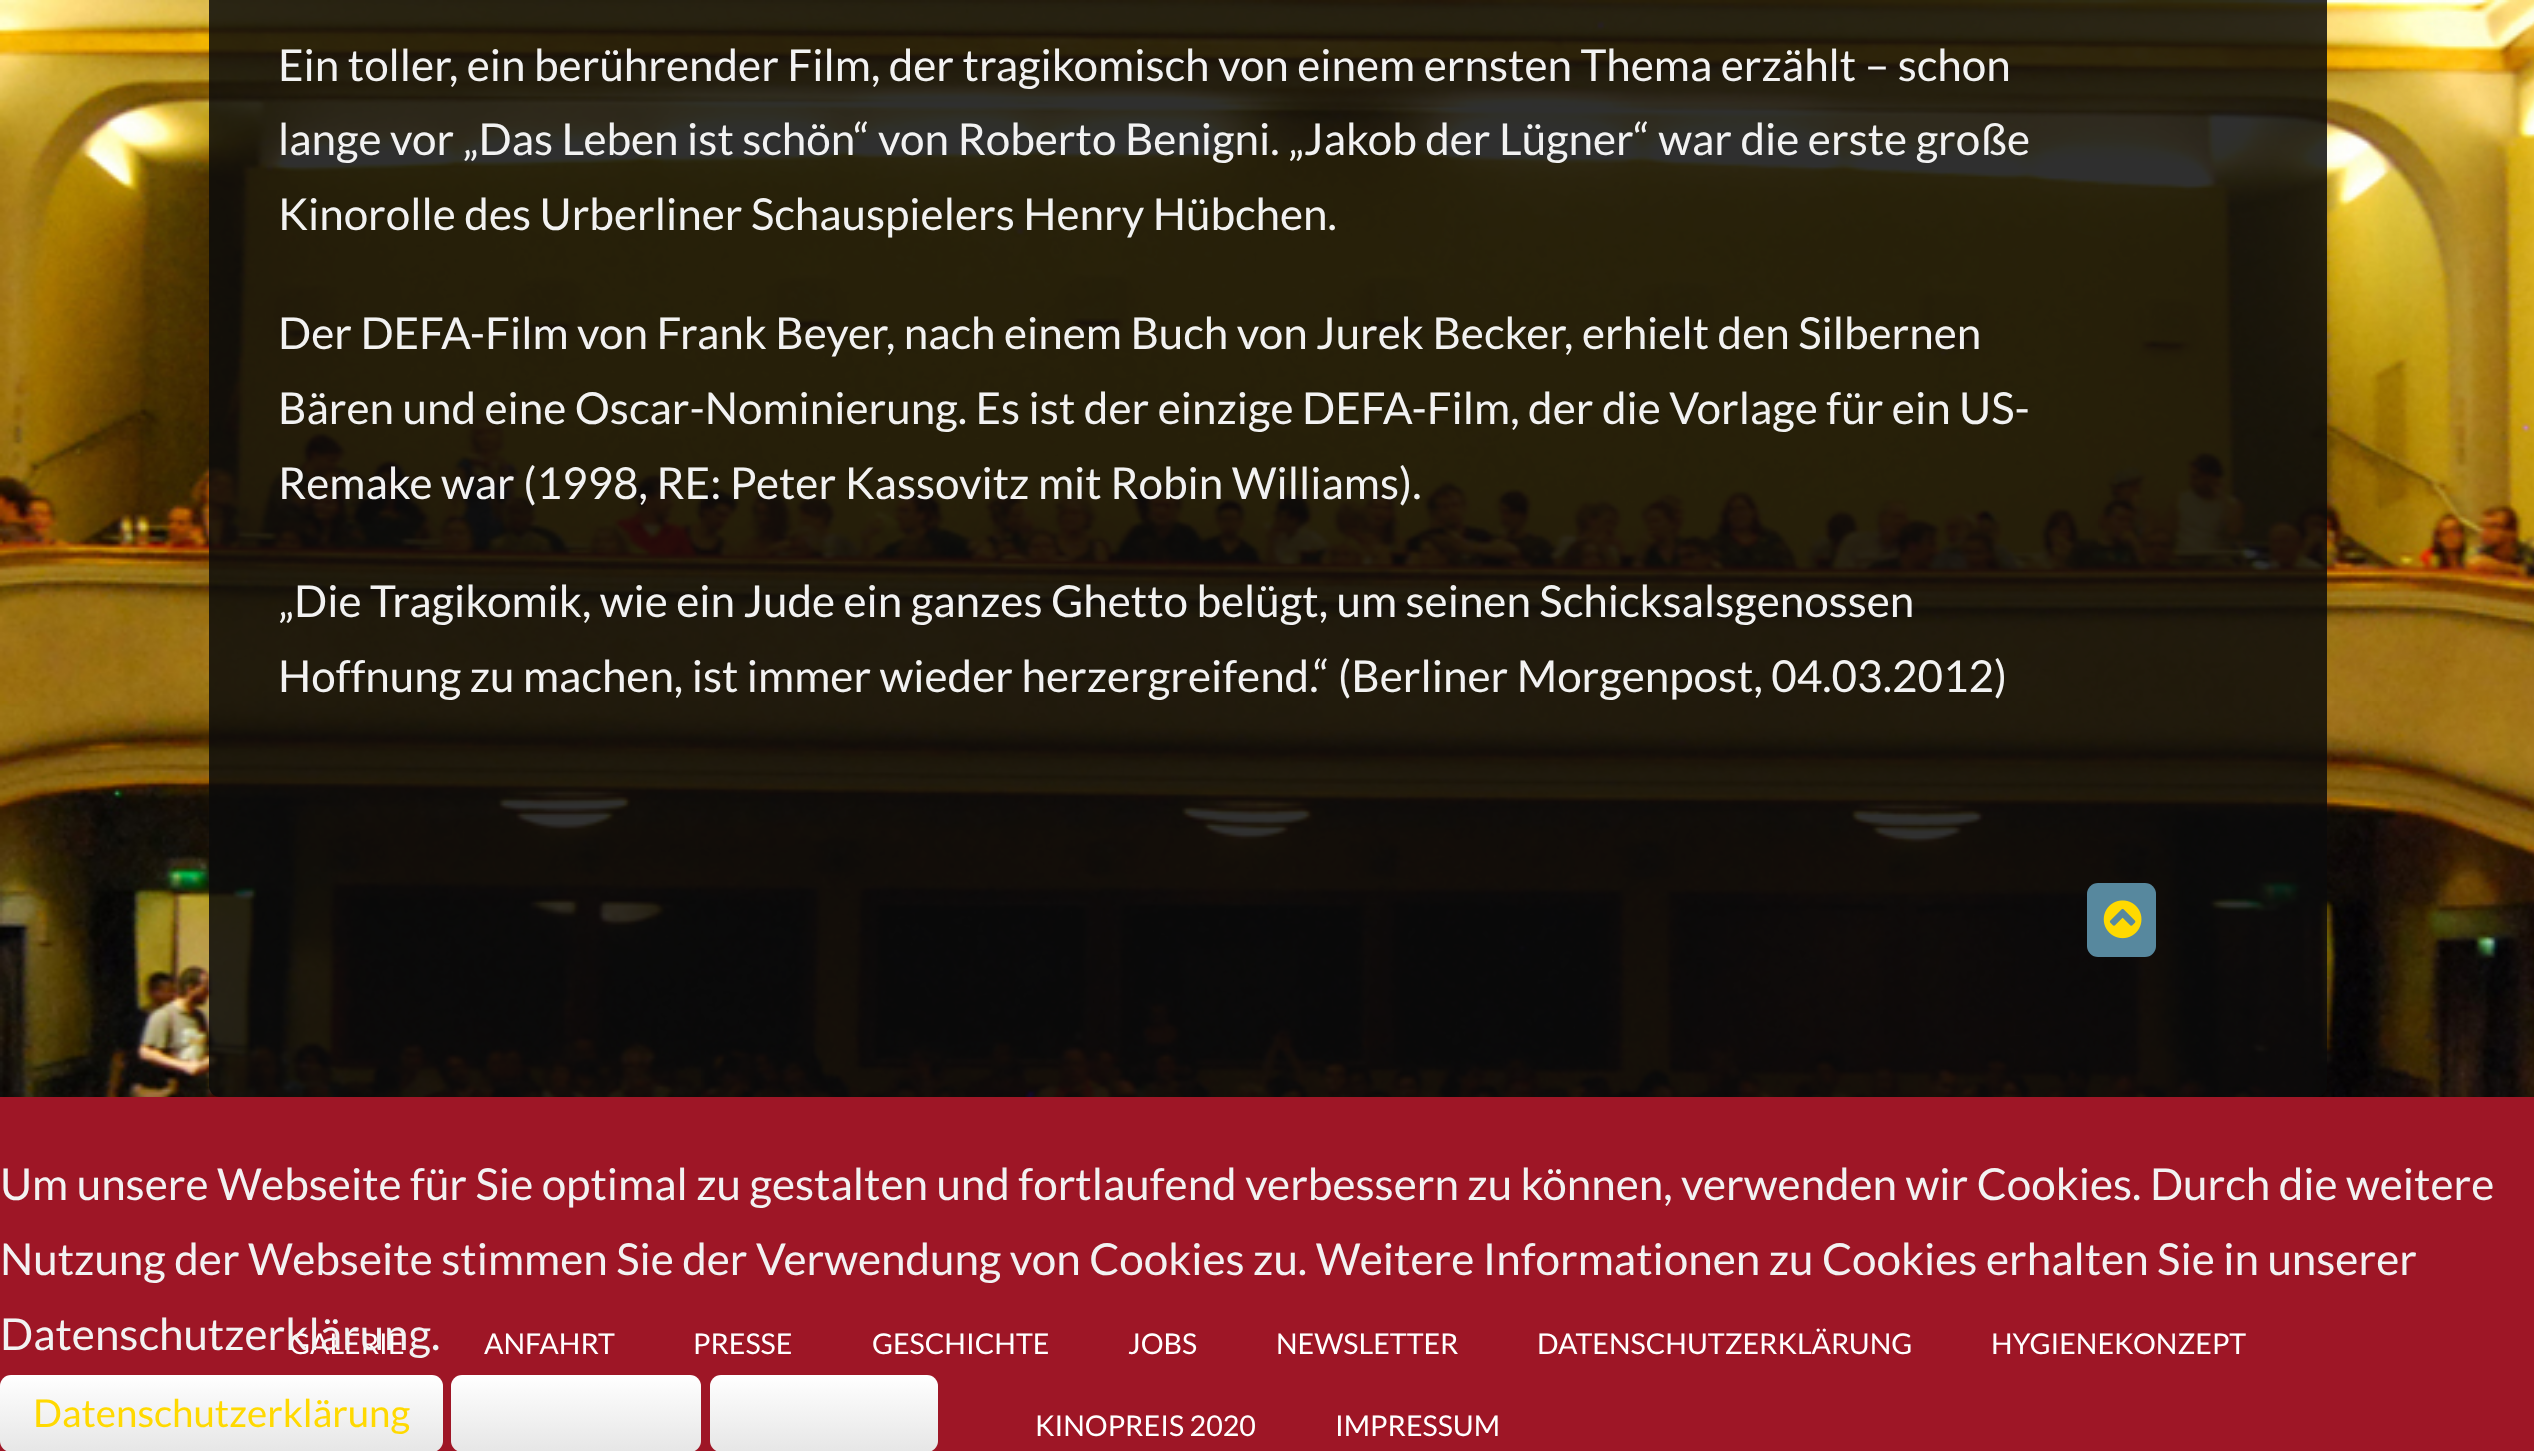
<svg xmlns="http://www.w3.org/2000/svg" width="2534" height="1451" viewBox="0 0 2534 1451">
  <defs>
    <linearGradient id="g1" gradientUnits="userSpaceOnUse" x1="221" y1="1375" x2="221" y2="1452"><stop offset="0" stop-color="rgb(255,255,255)"/><stop offset="1" stop-color="rgb(230,230,230)"/></linearGradient>
    <linearGradient id="g2" gradientUnits="userSpaceOnUse" x1="576" y1="1375" x2="576" y2="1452"><stop offset="0" stop-color="rgb(255,255,255)"/><stop offset="1" stop-color="rgb(230,230,230)"/></linearGradient>
    <linearGradient id="g3" gradientUnits="userSpaceOnUse" x1="824" y1="1375" x2="824" y2="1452"><stop offset="0" stop-color="rgb(255,255,255)"/><stop offset="1" stop-color="rgb(230,230,230)"/></linearGradient>
  </defs>
  <rect width="100%" height="100%" fill="rgb(255,255,255)"/>
  <image x="0" y="0" width="2534" height="1097" href="pic1.png"/>
  <rect x="209" y="-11" width="2118" height="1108" rx="11" fill="rgba(10,10,10,0.85)"/>
  <g font-family="Lato" font-size="44" fill="rgb(242,242,242)">
    <text>
      <tspan x="278" y="81">Ein toller, ein berührender Film, der tragikomisch von einem ernsten Thema erzählt – schon</tspan>
      <tspan x="278" y="155">lange vor „Das Leben ist schön“ von Roberto Benigni. „Jakob der Lügner“ war die erste große</tspan>
      <tspan x="278" y="230">Kinorolle des Urberliner Schauspielers Henry Hübchen.</tspan>
    </text>
    <text>
      <tspan x="278" y="349">Der DEFA-Film von Frank Beyer, nach einem Buch von Jurek Becker, erhielt den Silbernen</tspan>
      <tspan x="278" y="424">Bären und eine Oscar-Nominierung. Es ist der einzige DEFA-Film, der die Vorlage für ein US-</tspan>
      <tspan x="278" y="499">Remake war (1998, RE: Peter Kassovitz mit Robin Williams).</tspan>
    </text>
    <text>
      <tspan x="278" y="617">„Die Tragikomik, wie ein Jude ein ganzes Ghetto belügt, um seinen Schicksalsgenossen</tspan>
      <tspan x="278" y="692">Hoffnung zu machen, ist immer wieder herzergreifend.“ (Berliner Morgenpost, 04.03.2012)</tspan>
    </text>
  </g>
  <rect x="2087" y="883" width="69" height="74" rx="11" fill="rgb(87,136,158)"/>
  <image x="2103" y="900" width="39" height="39" href="pic2.png"/>
  <rect x="0" y="1097" width="2534" height="354" fill="rgb(158,22,38)"/>
  <g font-family="Lato" font-size="28.6" fill="rgb(255,255,255)">
    <text x="289" y="1354">GALERIE</text>
    <text x="484" y="1354">ANFAHRT</text>
    <text x="693" y="1354">PRESSE</text>
    <text x="872" y="1354">GESCHICHTE</text>
    <text x="1128" y="1354">JOBS</text>
    <text x="1276" y="1354">NEWSLETTER</text>
    <text x="1537" y="1354">DATENSCHUTZERKLÄRUNG</text>
    <text x="1991" y="1354">HYGIENEKONZEPT</text>
    <text x="1035" y="1436">KINOPREIS 2020</text>
    <text x="1335" y="1436">IMPRESSUM</text>
  </g>
  <g font-family="Lato" font-size="44" fill="rgb(242,242,242)">
    <text>
      <tspan x="0" y="1200">Um unsere Webseite für Sie optimal zu gestalten und fortlaufend verbessern zu können, verwenden wir Cookies. Durch die weitere</tspan>
      <tspan x="0" y="1275">Nutzung der Webseite stimmen Sie der Verwendung von Cookies zu. Weitere Informationen zu Cookies erhalten Sie in unserer</tspan>
      <tspan x="0" y="1350">Datenschutzerklärung.</tspan>
    </text>
  </g>
  <rect x="0" y="1375" width="443" height="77" rx="11" fill="url(#g1)"/>
  <text x="33" y="1427" font-family="Lato" font-size="38.5" fill="rgb(255,217,0)">Datenschutzerklärung</text>
  <rect x="451" y="1375" width="250" height="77" rx="11" fill="url(#g2)"/>
  <rect x="710" y="1375" width="228" height="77" rx="11" fill="url(#g3)"/>
</svg>
